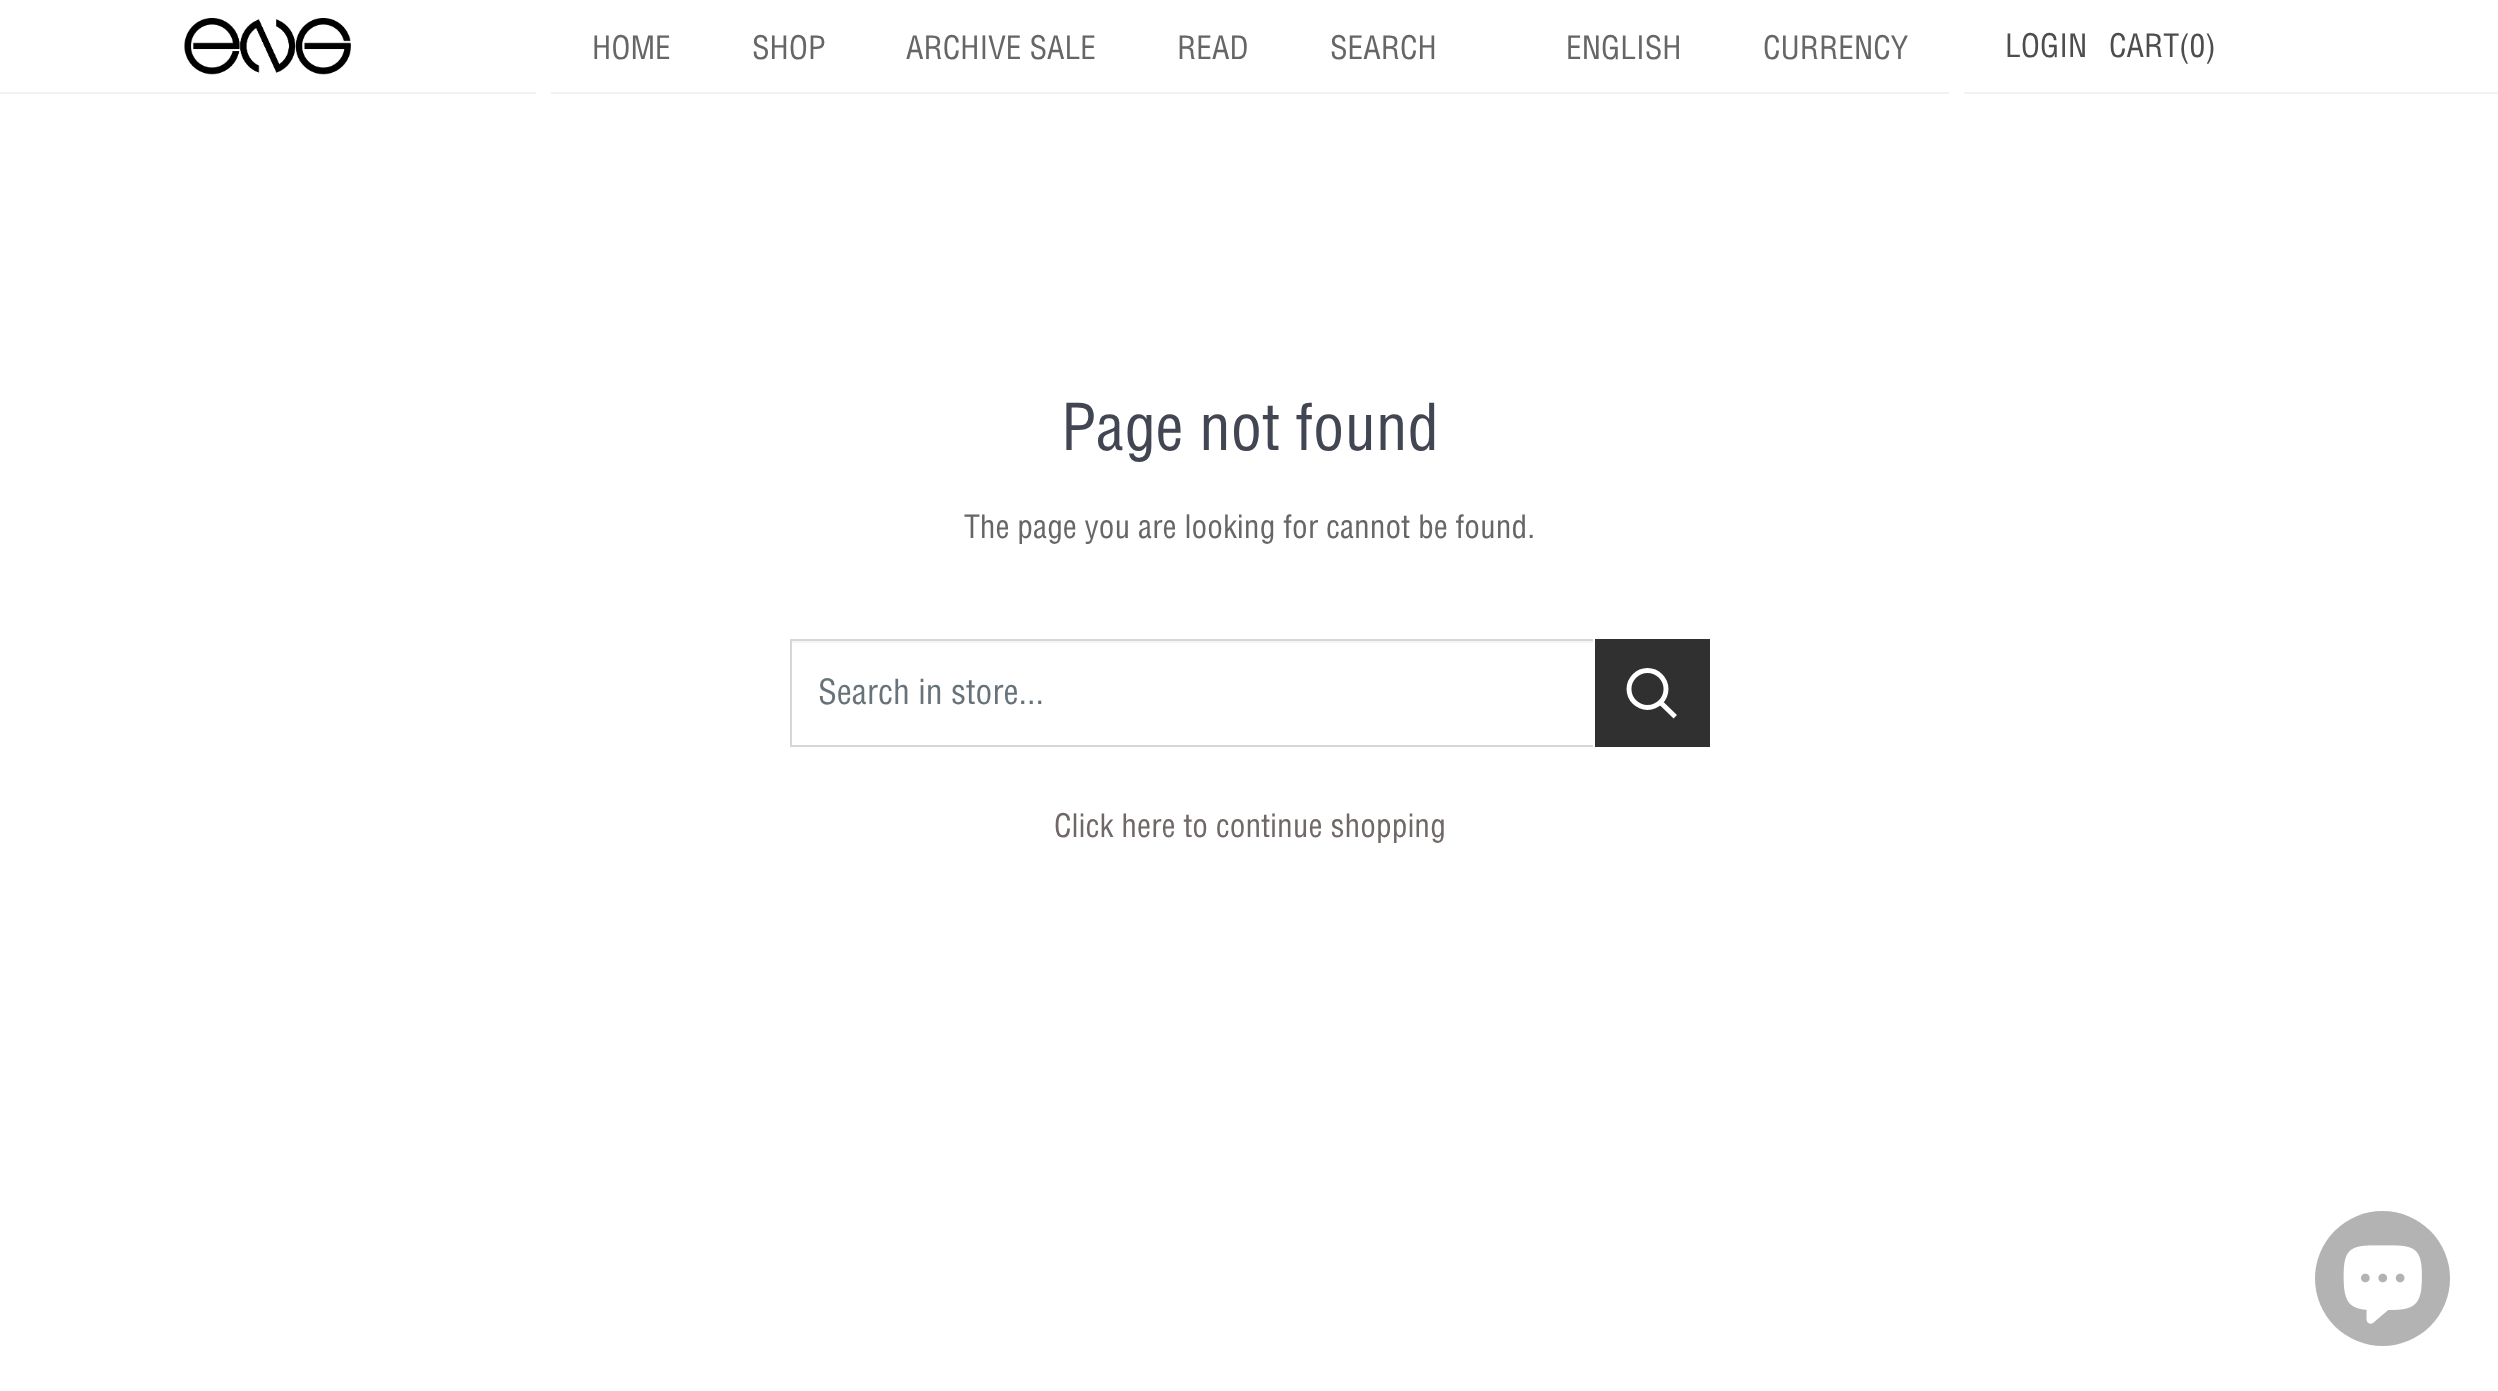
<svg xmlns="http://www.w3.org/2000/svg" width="2498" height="1391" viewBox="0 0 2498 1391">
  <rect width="100%" height="100%" fill="rgb(255,255,255)"/>
  <rect x="0" y="92" width="536" height="2" fill="rgb(242,242,242)"/>
  <image x="184" y="18" width="167" height="57" href="pic1.png"/>
  <rect x="551" y="92" width="1398" height="2" fill="rgb(242,242,242)"/>
  <g font-family="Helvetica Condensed" font-size="31.5" fill="rgb(102,102,102)">
    <text x="592" y="59">HOME</text>
    <text x="752" y="59">SHOP</text>
    <text x="906" y="59">ARCHIVE SALE</text>
    <text x="1177" y="59">READ</text>
    <text x="1330" y="59">SEARCH</text>
    <text x="1566" y="59">ENGLISH</text>
    <text x="1763" y="59">CURRENCY</text>
  </g>
  <rect x="1964" y="92" width="534" height="2" fill="rgb(242,242,242)"/>
  <g font-family="Helvetica Condensed" font-size="31.5" fill="rgb(77,77,77)">
    <text x="2005" y="57">LOGIN</text>
    <text x="2109" y="57">CART(0)</text>
  </g>
  <text x="1061" y="450" font-family="Helvetica Condensed" font-size="63" fill="rgb(66,69,82)">Page not found</text>
  <text x="964" y="538" font-family="Helvetica Condensed" font-size="31.5" fill="rgb(102,102,102)">The page you are looking for cannot be found.</text>
  <rect x="792" y="641" width="801" height="2" fill="rgb(244,245,245)"/>
  <rect x="790" y="639" width="803" height="2" fill="rgb(212,214,216)"/>
  <rect x="790" y="745" width="803" height="2" fill="rgb(212,214,216)"/>
  <rect x="790" y="639" width="2" height="108" fill="rgb(212,214,216)"/>
  <text x="818" y="704" font-family="Helvetica Condensed" font-size="33.75" fill="rgb(103,114,121)">Search in store...</text>
  <rect x="1595" y="639" width="115" height="108" fill="rgb(48,48,48)"/>
  <path d="M1673.5 715L1661 703" fill="none" stroke="rgb(255,255,255)" stroke-width="4.9" stroke-linecap="square"/>
  <circle cx="1647.5" cy="689" r="18.5" fill="none" stroke="rgb(255,255,255)" stroke-width="4.9"/>
  <text x="1054" y="837" font-family="Helvetica Condensed" font-size="31.5" fill="rgb(112,104,102)">Click here to continue shopping</text>
  <circle cx="2382.5" cy="1278.5" r="67.5" fill="rgb(179,179,179)"/>
  <image x="2343" y="1245" width="79" height="79" href="pic2.png"/>
</svg>
